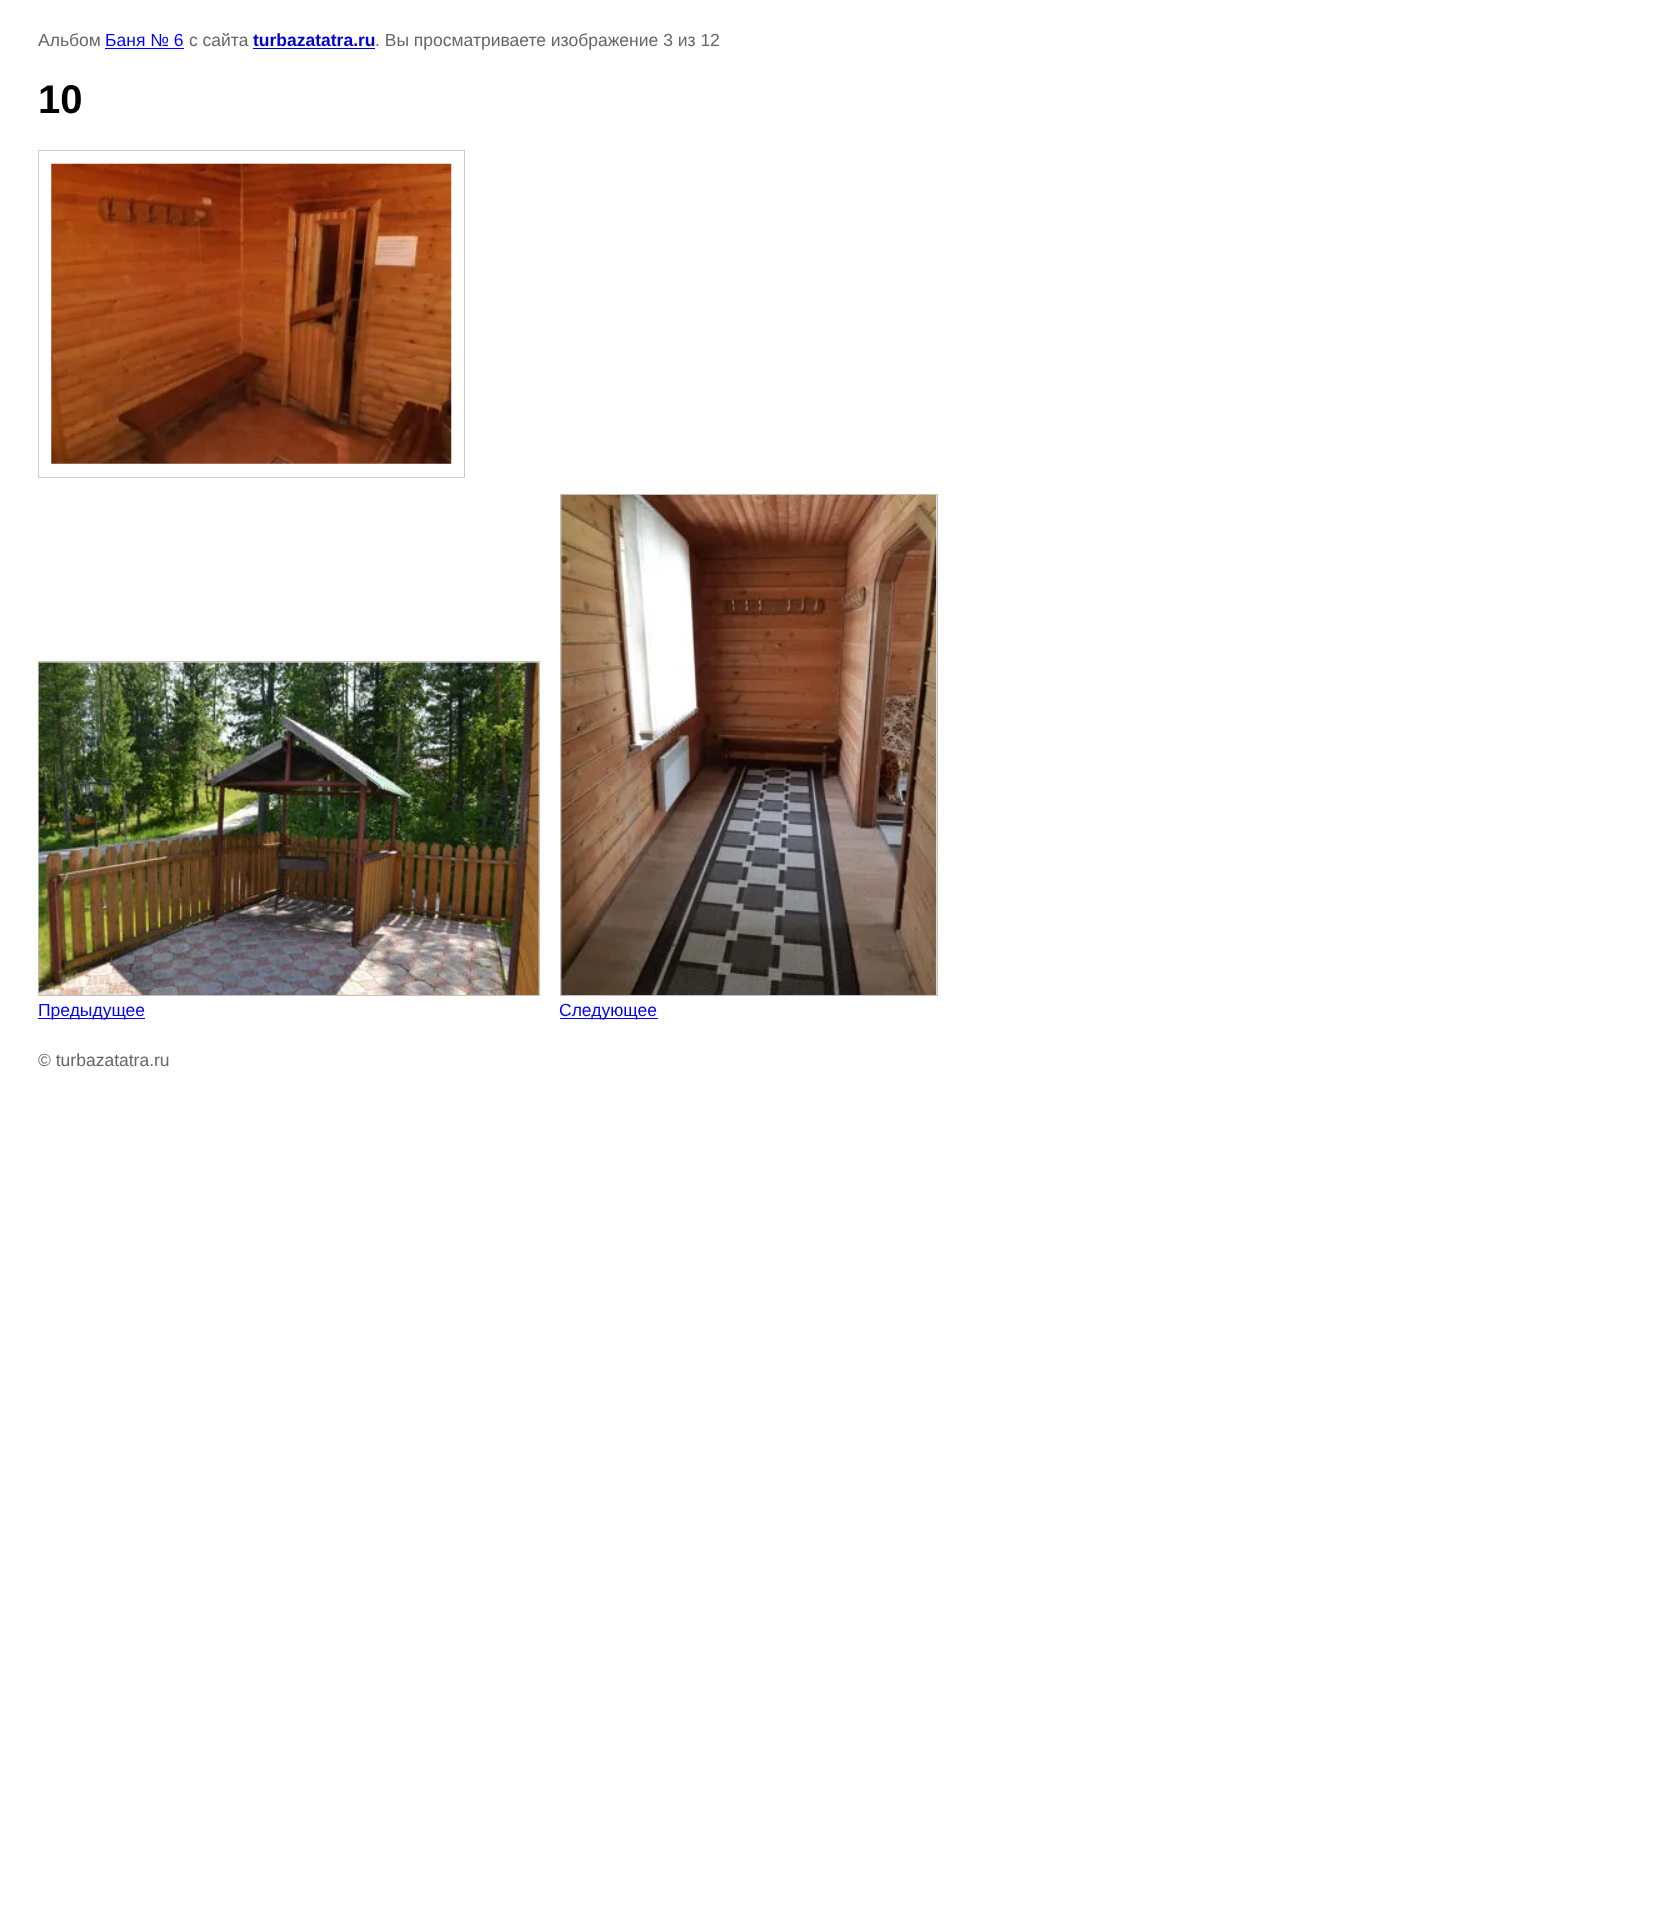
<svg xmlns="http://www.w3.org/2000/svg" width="1664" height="1927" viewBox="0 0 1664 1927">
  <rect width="100%" height="100%" fill="rgb(255,255,255)"/>
  <text x="38" y="46" font-family="Liberation Sans" font-size="17.5" fill="rgb(102,102,102)">Альбом</text>
  <text x="105" y="46" font-family="Liberation Sans" font-size="17.5" fill="rgb(0,0,255)">Баня № 6</text>
  <rect x="105" y="48" width="79" height="1" fill="rgb(0,0,255)"/>
  <text x="189" y="46" font-family="Liberation Sans" font-size="17.5" fill="rgb(102,102,102)">с сайта</text>
  <text x="253" y="46" font-family="Liberation Sans" font-size="17.5" font-weight="bold" fill="rgb(0,0,204)">turbazatatra.ru</text>
  <rect x="253" y="48" width="122" height="1" fill="rgb(0,0,204)"/>
  <text x="375" y="46" font-family="Liberation Sans" font-size="17.5" fill="rgb(102,102,102)">. Вы просматриваете изображение 3 из 12</text>
  <text x="38" y="113" font-family="Liberation Sans" font-size="40" font-weight="bold" fill="rgb(0,0,0)">10</text>
  <rect x="38.5" y="150.5" width="426" height="327" fill="none" stroke="rgb(204,204,204)"/>
  <image x="51" y="163" width="401" height="301" href="pic1.png"/>
  <rect x="38.5" y="661.5" width="501" height="334" fill="none" stroke="rgb(192,192,192)"/>
  <image x="38" y="662" width="501" height="333" href="pic2.png"/>
  <rect x="38" y="1018" width="107" height="1" fill="rgb(0,0,255)"/>
  <text x="38" y="1016" font-family="Liberation Sans" font-size="17.5" fill="rgb(0,0,255)">Предыдущее</text>
  <rect x="560.5" y="494.5" width="377" height="501" fill="none" stroke="rgb(192,192,192)"/>
  <image x="561" y="495" width="376" height="500" href="pic3.png"/>
  <rect x="560" y="1018" width="98" height="1" fill="rgb(0,0,255)"/>
  <text x="559" y="1016" font-family="Liberation Sans" font-size="17.5" fill="rgb(0,0,255)">Следующее</text>
  <text x="38" y="1066" font-family="Liberation Sans" font-size="17.5" fill="rgb(102,102,102)">© turbazatatra.ru</text>
</svg>
